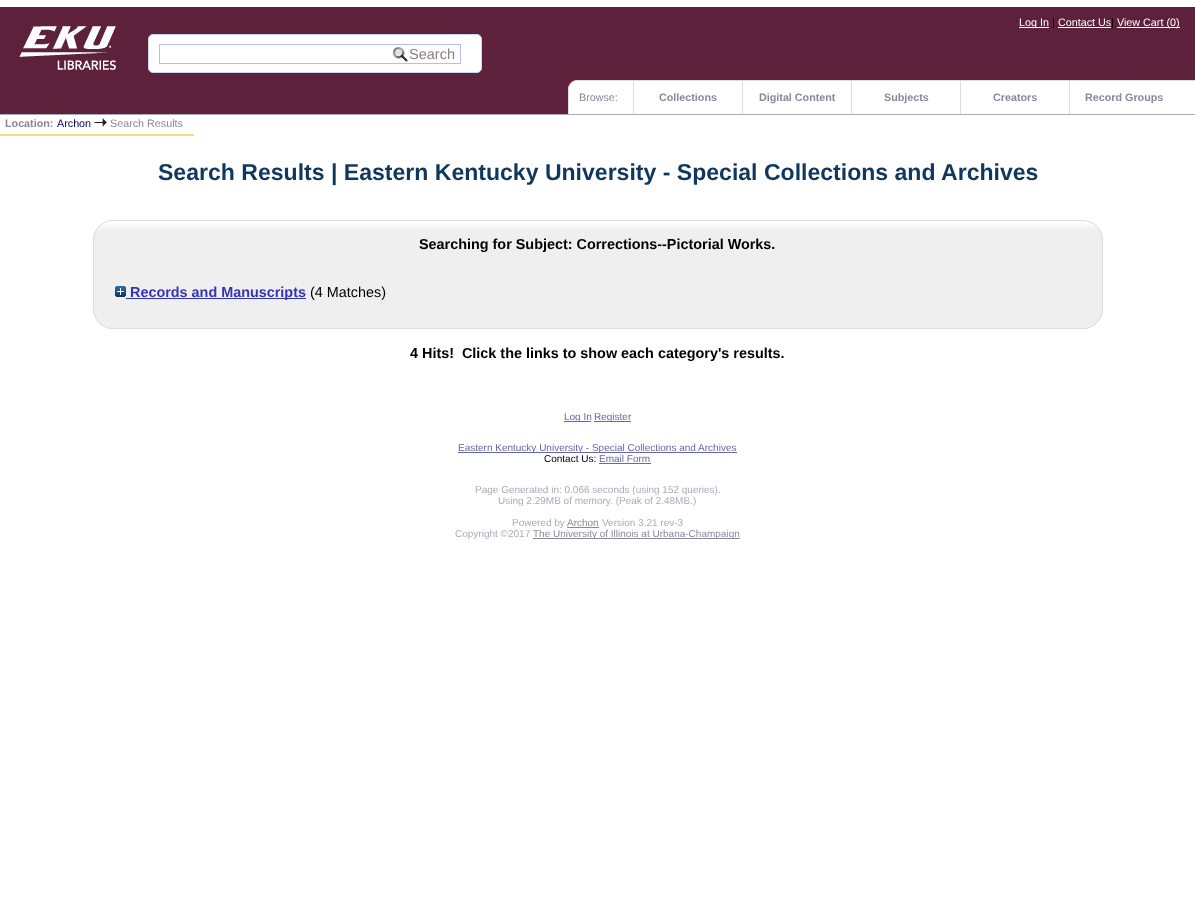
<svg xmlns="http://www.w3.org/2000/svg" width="1195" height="917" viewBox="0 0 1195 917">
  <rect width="100%" height="100%" fill="rgb(255,255,255)"/>
  <rect x="0" y="7" width="1195" height="107" fill="rgb(94,33,59)"/>
  <rect x="0" y="114" width="1195" height="1" fill="rgb(170,170,187)"/>
  <rect x="1019" y="27" width="30" height="1" fill="rgb(255,255,255)"/>
  <text x="1019" y="26" font-family="Liberation Sans" font-size="10.75" fill="rgb(255,255,255)">Log In</text>
  <text x="1052" y="26" font-family="Liberation Sans" font-size="10.75" fill="rgb(0,0,0)">|</text>
  <text x="1058" y="26" font-family="Liberation Sans" font-size="10.75" fill="rgb(255,255,255)">Contact Us</text>
  <rect x="1058" y="27" width="53" height="1" fill="rgb(255,255,255)"/>
  <text x="1111" y="26" font-family="Liberation Sans" font-size="10.75" fill="rgb(0,0,0)">|</text>
  <rect x="1117" y="27" width="53" height="1" fill="rgb(255,255,255)"/>
  <text x="1117" y="26" font-family="Liberation Sans" font-size="10.75" fill="rgb(255,255,255)">View Cart (0</text>
  <rect x="1170" y="27" width="10" height="1" fill="rgb(255,255,255)"/>
  <text x="1176" y="26" font-family="Liberation Sans" font-size="10.75" fill="rgb(255,255,255)">)</text>
  <image x="19" y="26" width="97" height="44" href="pic1.png"/>
  <rect x="148.5" y="34.5" width="333" height="38" rx="4.5" fill="rgb(255,255,255)" stroke="rgb(196,215,244)"/>
  <rect x="159.5" y="44.5" width="232" height="19" fill="none" stroke="rgb(187,187,238)"/>
  <rect x="391" y="45" width="1" height="18" fill="rgb(255,255,255)"/>
  <image x="392" y="47" width="16" height="15" href="pic2.png"/>
  <rect x="389" y="44" width="72" height="1" fill="rgb(187,187,238)"/>
  <rect x="460" y="44" width="1" height="20" fill="rgb(187,187,238)"/>
  <rect x="389" y="63" width="72" height="1" fill="rgb(187,187,238)"/>
  <text x="409" y="59" font-family="Liberation Sans" font-size="14.5" fill="rgb(140,127,127)">Search</text>
  <path d="M578 80H1195V114H568V90C568 84.5 572.5 80 578 80Z" fill="rgb(255,255,255)"/>
  <path d="M578 80H1195V114H568V90C568 84 572 80 578 80ZM578 81H1195V114H569V90C569 85 573 81 578 81Z" fill="rgb(221,221,221)" fill-rule="evenodd"/>
  <text x="579" y="101" font-family="Liberation Sans" font-size="10.75" fill="rgb(136,136,153)">Browse:</text>
  <rect x="633" y="81" width="1" height="33" fill="rgb(221,221,221)"/>
  <text x="659" y="101" font-family="Liberation Sans" font-size="10.75" font-weight="bold" fill="rgb(136,136,153)">Collections</text>
  <rect x="742" y="81" width="1" height="33" fill="rgb(221,221,221)"/>
  <text x="759" y="101" font-family="Liberation Sans" font-size="10.75" font-weight="bold" fill="rgb(136,136,153)">Digital Content</text>
  <rect x="851" y="81" width="1" height="33" fill="rgb(221,221,221)"/>
  <text x="884" y="101" font-family="Liberation Sans" font-size="10.75" font-weight="bold" fill="rgb(136,136,153)">Subjects</text>
  <rect x="960" y="81" width="1" height="33" fill="rgb(221,221,221)"/>
  <text x="993" y="101" font-family="Liberation Sans" font-size="10.75" font-weight="bold" fill="rgb(136,136,153)">Creators</text>
  <rect x="1069" y="81" width="1" height="33" fill="rgb(221,221,221)"/>
  <text x="1085" y="101" font-family="Liberation Sans" font-size="10.75" font-weight="bold" fill="rgb(136,136,153)">Record Groups</text>
  <rect x="0" y="134" width="194" height="2" fill="rgb(251,219,122)"/>
  <text x="5" y="127" font-family="Liberation Sans" font-size="10.75" font-weight="bold" fill="rgb(136,136,153)">Location:</text>
  <text x="57" y="127" font-family="Liberation Sans" font-size="10.75" fill="rgb(0,0,102)">Archon</text>
  <image x="94" y="118" width="13" height="9" href="pic3.png"/>
  <text x="110" y="127" font-family="Liberation Sans" font-size="10.75" fill="rgb(136,136,153)">Search Results</text>
  <text x="158" y="180" font-family="Liberation Sans" font-size="23.05" font-weight="bold" fill="rgb(16,55,93)">Search Results | Eastern Kentucky University - Special Collections and Archives</text>
  <rect x="93" y="220" width="1010" height="109" rx="20" fill="rgb(240,239,239)"/>
  <image x="95" y="221" width="1006" height="10" href="pic4.png"/>
  <rect x="93.5" y="220.5" width="1009" height="108" rx="19.5" fill="none" stroke="rgb(221,221,221)"/>
  <text x="419" y="249" font-family="Liberation Sans" font-size="14.4" font-weight="bold" fill="rgb(0,0,0)">Searching for Subject: Corrections--Pictorial Works.</text>
  <image x="115" y="286" width="11" height="11" href="pic5.png"/>
  <rect x="126" y="298" width="180" height="1" fill="rgb(51,51,187)"/>
  <text x="130" y="297" font-family="Liberation Sans" font-size="14.4" font-weight="bold" fill="rgb(51,51,187)">Records and Manuscripts</text>
  <text x="310" y="297" font-family="Liberation Sans" font-size="14.4" fill="rgb(0,0,0)">(4 Matches)</text>
  <text x="410" y="358" font-family="Liberation Sans" font-size="14.4" font-weight="bold" fill="rgb(0,0,0)" xml:space="preserve">4 Hits!  Click the links to show each category's results.</text>
  <rect x="564" y="421" width="27" height="1" fill="rgb(102,102,170)"/>
  <text x="564" y="420" font-family="Liberation Sans" font-size="10" fill="rgb(102,102,170)">Log In</text>
  <rect x="594" y="421" width="37" height="1" fill="rgb(102,102,170)"/>
  <text x="594" y="420" font-family="Liberation Sans" font-size="10" fill="rgb(102,102,170)">Register</text>
  <rect x="458" y="452" width="279" height="1" fill="rgb(102,102,170)"/>
  <text x="458" y="451" font-family="Liberation Sans" font-size="10" fill="rgb(102,102,170)">Eastern Kentucky University - Special Collections and Archives</text>
  <text x="544" y="462" font-family="Liberation Sans" font-size="10" fill="rgb(0,0,0)">Contact Us:</text>
  <text x="599" y="462" font-family="Liberation Sans" font-size="10" fill="rgb(102,102,170)">Email Form</text>
  <rect x="599" y="463" width="52" height="1" fill="rgb(102,102,170)"/>
  <g font-family="Liberation Sans" font-size="10" fill="rgb(170,170,187)">
    <text x="475" y="493">Page Generated in: 0.066 seconds (using 152 queries).</text>
    <text x="498" y="504">Using 2.29MB of memory. (Peak of 2.48MB.)</text>
    <text x="512" y="526">Powered by</text>
  </g>
  <text x="567" y="526" font-family="Liberation Sans" font-size="10" fill="rgb(136,136,153)">Archon</text>
  <rect x="567" y="527" width="32" height="1" fill="rgb(136,136,153)"/>
  <g font-family="Liberation Sans" font-size="10" fill="rgb(170,170,187)">
    <text x="602" y="526">Version 3.21 rev-3</text>
    <text x="455" y="537">Copyright ©2017</text>
  </g>
  <rect x="533" y="538" width="207" height="1" fill="rgb(136,136,153)"/>
  <text x="533" y="537" font-family="Liberation Sans" font-size="10" fill="rgb(136,136,153)">The University of Illinois at Urbana-Champaign</text>
</svg>
